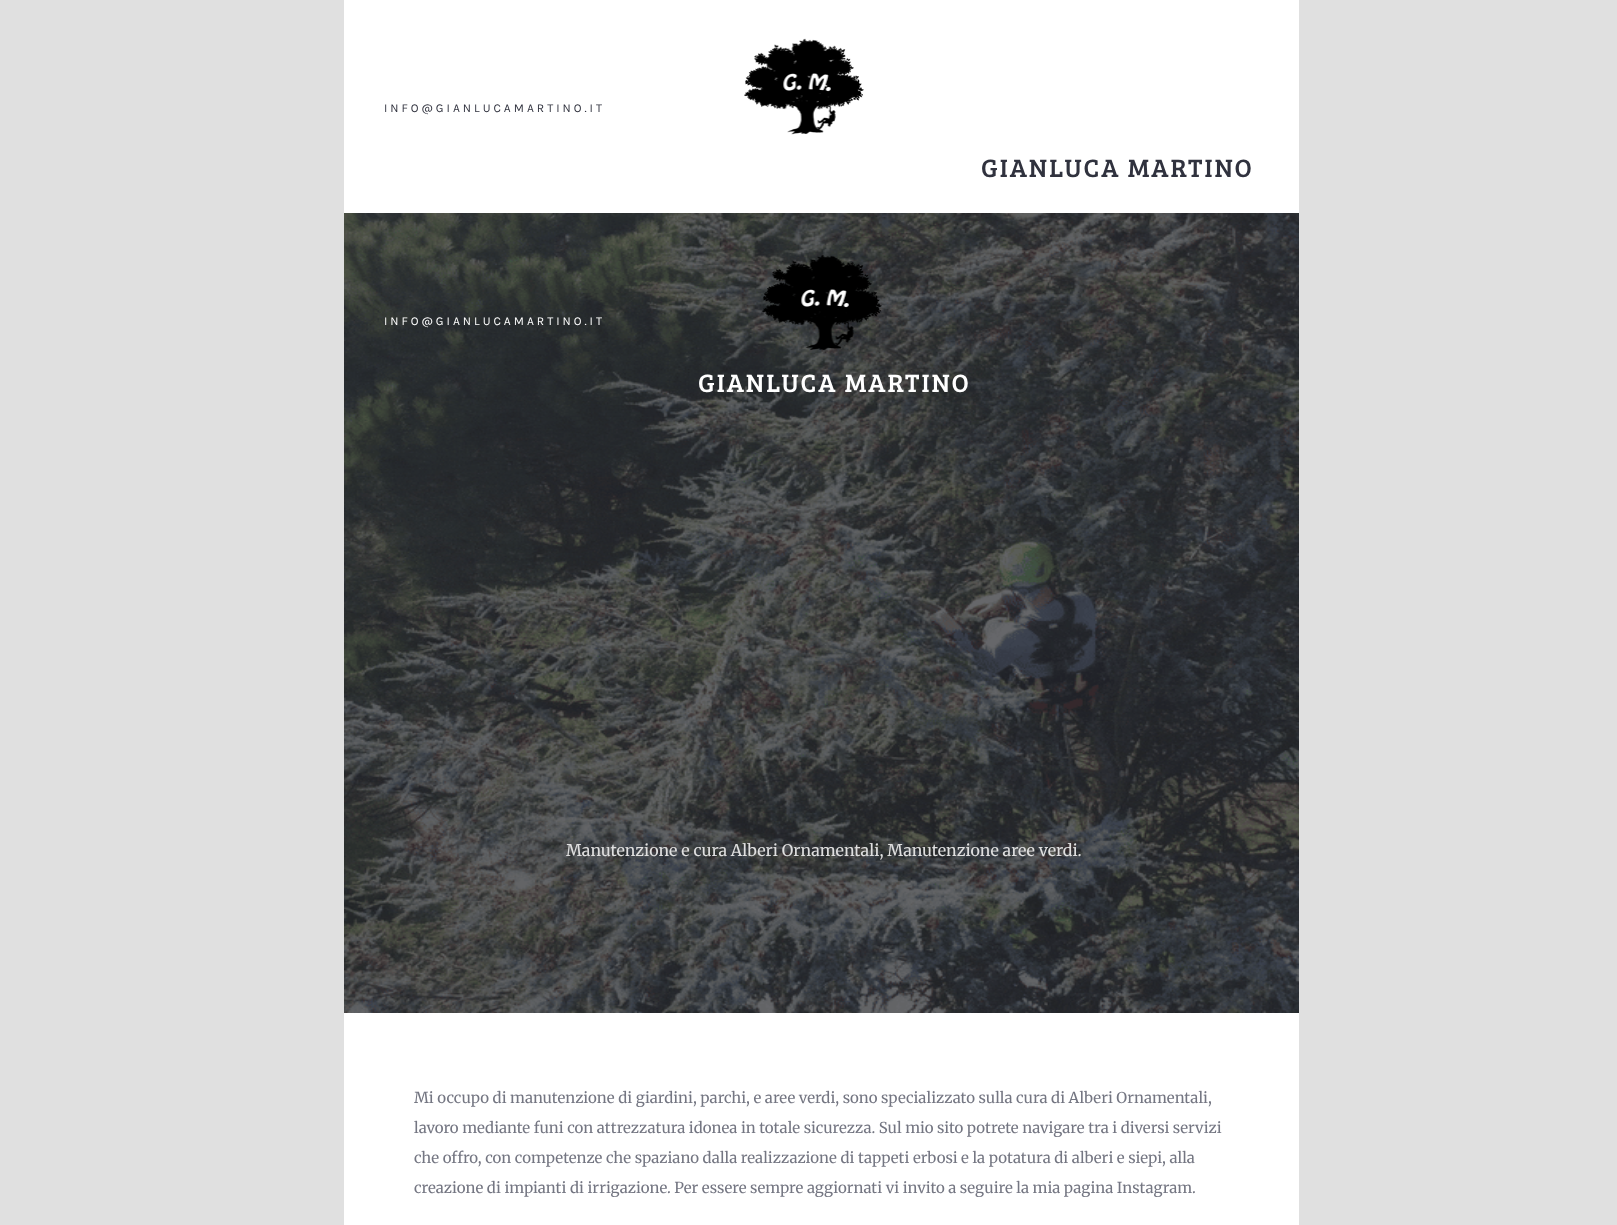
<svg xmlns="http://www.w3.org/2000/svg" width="1617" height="1225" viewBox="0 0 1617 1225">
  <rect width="100%" height="100%" fill="rgb(224,224,224)"/>
  <rect x="344" y="0" width="955" height="213" fill="rgb(255,255,255)"/>
  <text x="384" y="112" font-family="Karla" font-size="12" letter-spacing="3" fill="rgb(48,50,62)">INFO@GIANLUCAMARTINO.IT</text>
  <image x="744" y="38" width="120" height="97" href="pic1.png"/>
  <text x="981" y="177" font-family="Bree Serif" font-size="26" letter-spacing="2" fill="rgb(48,50,62)">GIANLUCA MARTINO</text>
  <image x="344" y="213" width="955" height="800" href="pic2.png"/>
  <text x="384" y="325" font-family="Karla" font-size="12" letter-spacing="3" fill="rgb(255,255,255)">INFO@GIANLUCAMARTINO.IT</text>
  <image x="762" y="255" width="120" height="96" href="pic3.png"/>
  <text x="698" y="392" font-family="Bree Serif" font-size="26" letter-spacing="2" fill="rgb(255,255,255)">GIANLUCA MARTINO</text>
  <text x="566" y="856" font-family="Merriweather" font-size="16" fill="rgb(224,224,224)">Manutenzione e cura Alberi Ornamentali, Manutenzione aree verdi.</text>
  <rect x="344" y="1013" width="955" height="212" fill="rgb(255,255,255)"/>
  <g font-family="Merriweather" font-size="15" fill="rgb(116,118,130)">
    <text x="414" y="1103">Mi occupo di manutenzione di giardini, parchi, e aree verdi, sono specializzato sulla cura di Alberi Ornamentali,</text>
    <text x="414" y="1133">lavoro mediante funi con attrezzatura idonea in totale sicurezza. Sul mio sito potrete navigare tra i diversi servizi</text>
    <text x="414" y="1163">che offro, con competenze che spaziano dalla realizzazione di tappeti erbosi e la potatura di alberi e siepi, alla</text>
    <text x="414" y="1193">creazione di impianti di irrigazione. Per essere sempre aggiornati vi invito a seguire la mia pagina Instagram.</text>
  </g>
</svg>
